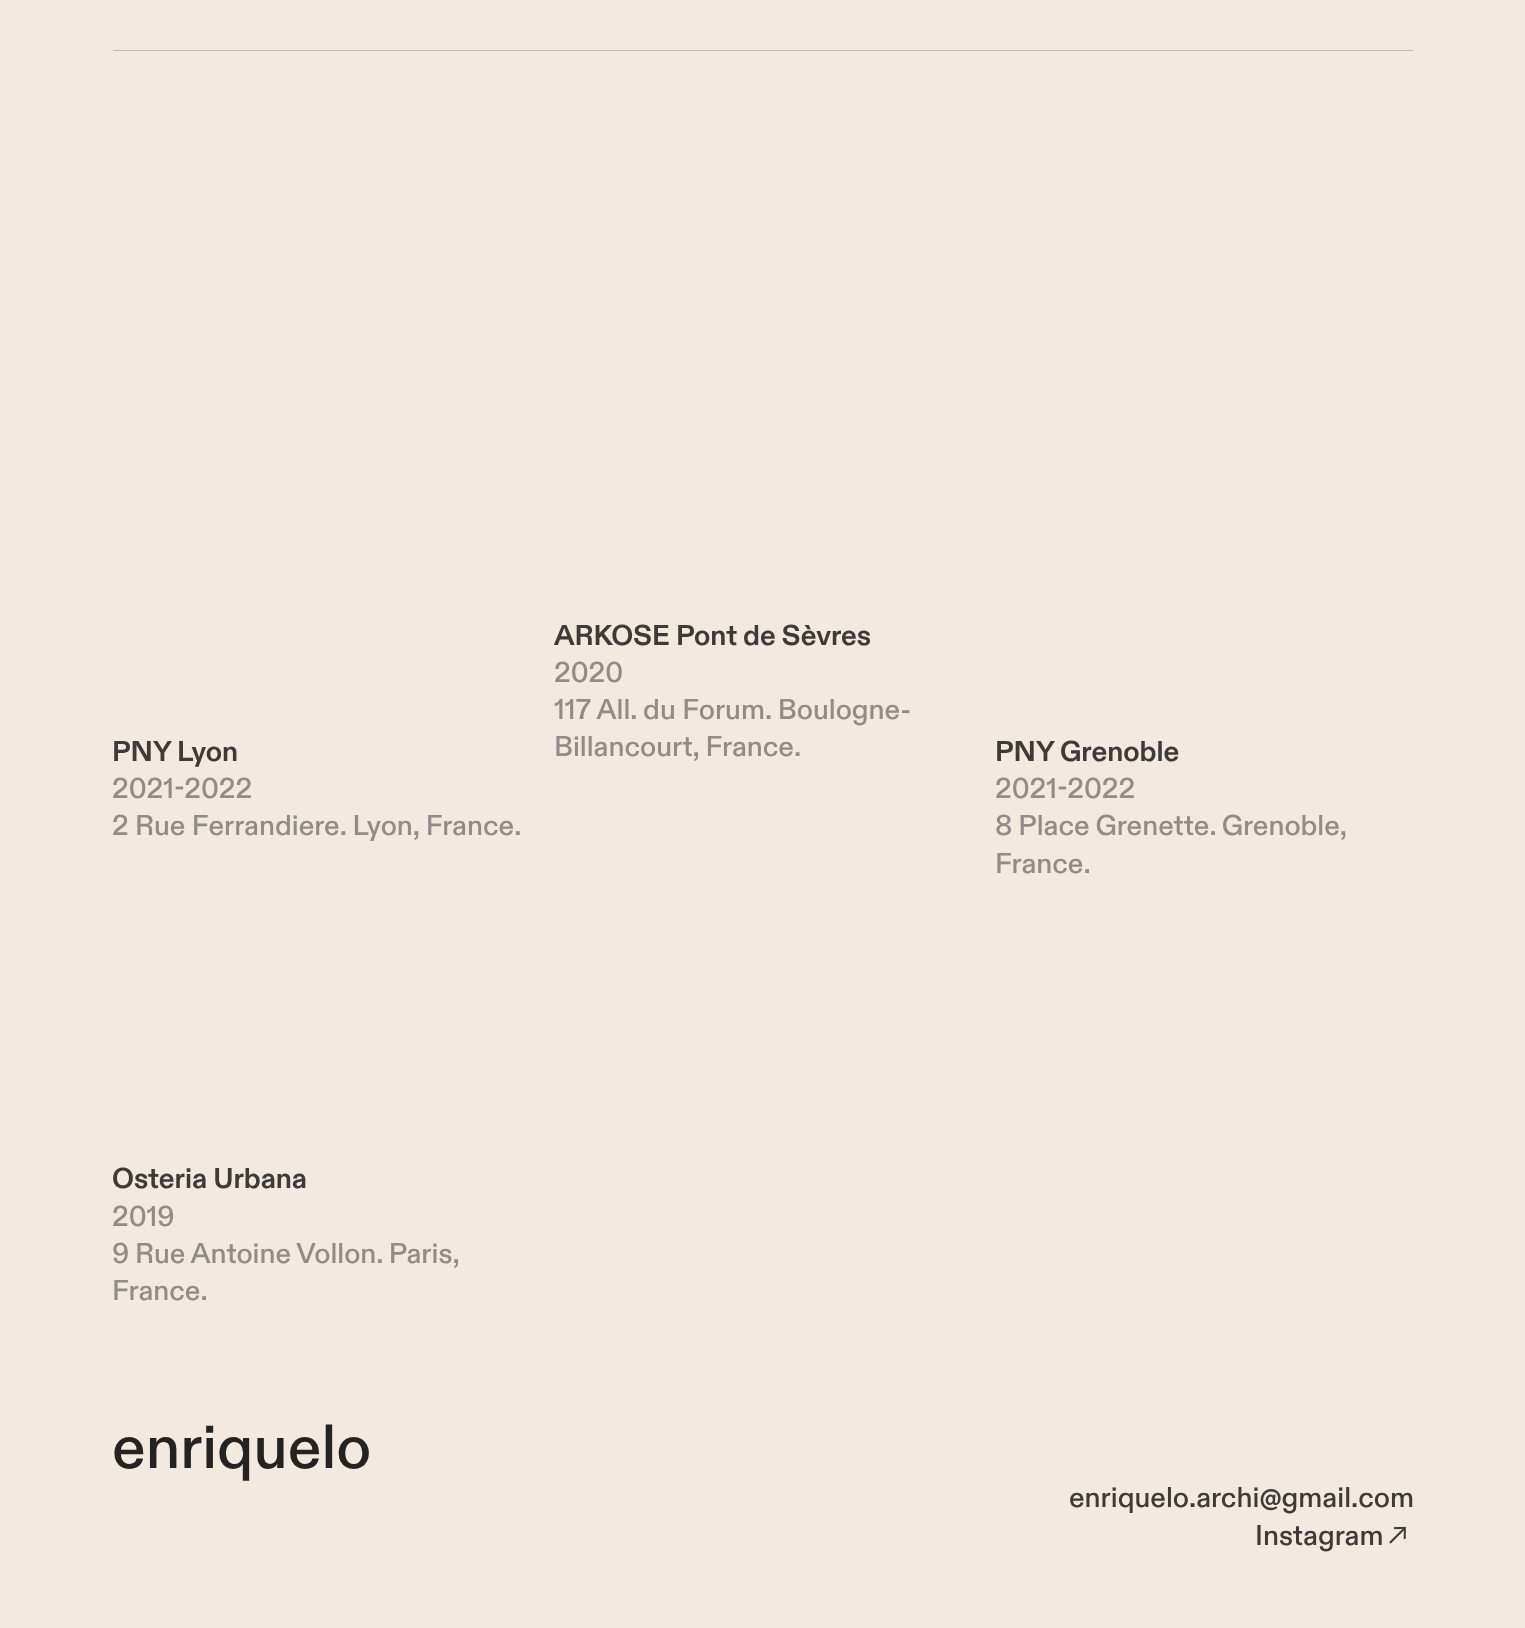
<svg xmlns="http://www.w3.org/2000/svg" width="1525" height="1628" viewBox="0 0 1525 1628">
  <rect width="100%" height="100%" fill="rgb(242,233,225)"/>
  <rect x="113" y="50" width="1300" height="1" fill="rgb(194,186,180)"/>
  <text x="554" y="645" font-family="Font" font-size="28.7" font-weight="bold" fill="rgb(61,58,56)">ARKOSE Pont de Sèvres</text>
  <g font-family="Font" font-size="28.7" font-weight="500" fill="rgb(145,140,135)">
    <text>
      <tspan x="554" y="682">2020</tspan>
      <tspan x="554" y="719">117 All. du Forum. Boulogne-</tspan>
      <tspan x="554" y="756">Billancourt, France.</tspan>
    </text>
  </g>
  <text x="112" y="761" font-family="Font" font-size="28.7" font-weight="bold" fill="rgb(61,58,56)">PNY Lyon</text>
  <g font-family="Font" font-size="28.7" font-weight="500" fill="rgb(145,140,135)">
    <text>
      <tspan x="112" y="798">2021-2022</tspan>
      <tspan x="112" y="835">2 Rue Ferrandiere. Lyon, France.</tspan>
    </text>
  </g>
  <text x="112" y="1188" font-family="Font" font-size="28.7" font-weight="bold" fill="rgb(61,58,56)">Osteria Urbana</text>
  <g font-family="Font" font-size="28.7" font-weight="500" fill="rgb(145,140,135)">
    <text>
      <tspan x="112" y="1226">2019</tspan>
      <tspan x="112" y="1263" word-spacing="-0.5">9 Rue Antoine Vollon. Paris,</tspan>
      <tspan x="112" y="1300">France.</tspan>
    </text>
  </g>
  <text x="995" y="761" font-family="Font" font-size="28.7" font-weight="bold" fill="rgb(61,58,56)">PNY Grenoble</text>
  <g font-family="Font" font-size="28.7" font-weight="500" fill="rgb(145,140,135)">
    <text>
      <tspan x="995" y="798">2021-2022</tspan>
      <tspan x="995" y="835" word-spacing="-0.5">8 Place Grenette. Grenoble,</tspan>
      <tspan x="995" y="873">France.</tspan>
    </text>
  </g>
  <text x="112" y="1468" font-family="Font" font-size="62" font-weight="500" fill="rgb(36,35,34)">enriquelo</text>
  <g font-family="Font" font-size="28.7" font-weight="500" fill="rgb(61,58,56)">
    <text x="1069" y="1507">enriquelo.archi@gmail.com</text>
    <text x="1255" y="1545">Instagram</text>
  </g>
  <image x="1389" y="1526" width="17" height="18" href="pic1.png"/>
</svg>
